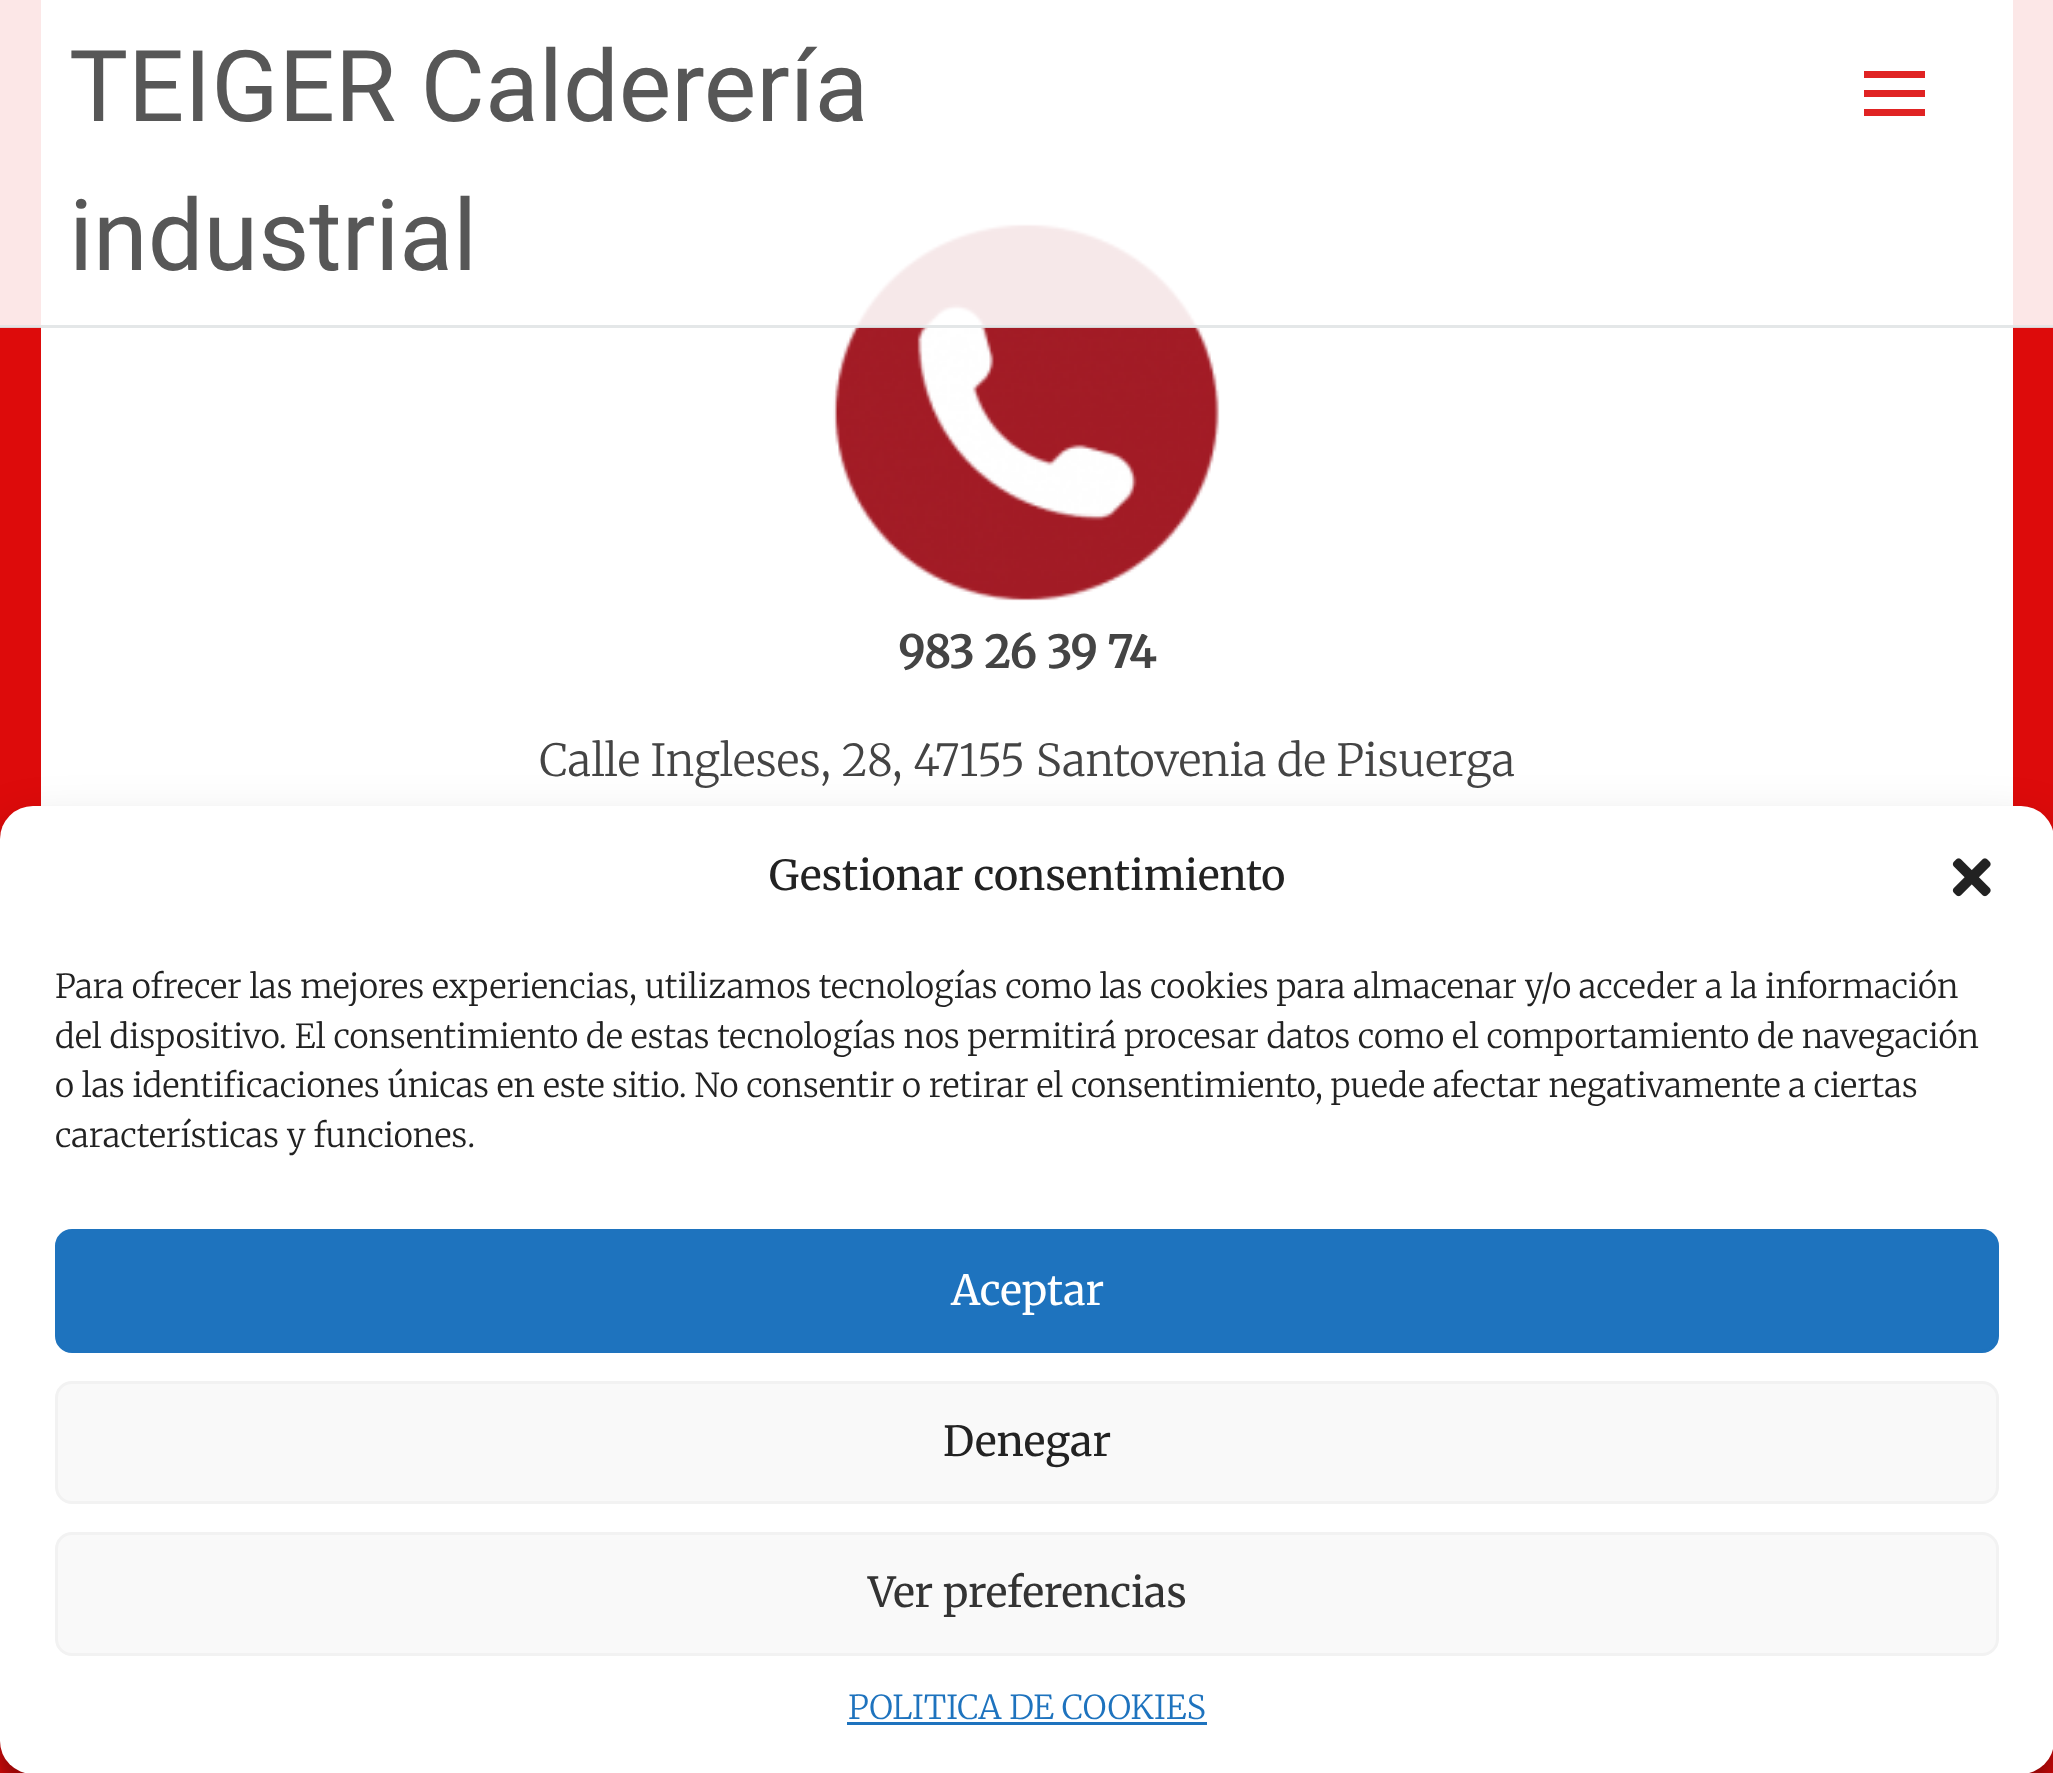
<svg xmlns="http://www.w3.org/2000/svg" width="2053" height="1773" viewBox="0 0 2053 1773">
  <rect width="100%" height="100%" fill="rgb(221,11,11)"/>
  <rect x="41" y="0" width="1972" height="806" fill="rgb(255,255,255)"/>
  <image x="833" y="224" width="387" height="377" href="pic1.png"/>
  <rect x="0" y="0" width="2053" height="327" fill="rgba(255,255,255,0.9)"/>
  <rect x="0" y="325" width="2053" height="3" fill="rgba(225,228,230,0.9)"/>
  <g font-family="Roboto" font-size="99" fill="rgb(87,87,87)">
    <text>
      <tspan x="69" y="121">TEIGER Calderería</tspan>
      <tspan x="69" y="270">industrial</tspan>
    </text>
  </g>
  <path d="M1864 116V109H1925V116ZM1864 71H1925V78H1864ZM1864 97V90H1925V97Z" fill="rgb(224,35,35)"/>
  <text x="898" y="668" font-family="Merriweather" font-size="44" font-weight="bold" fill="rgb(68,68,68)">983 26 39 74</text>
  <text x="539" y="776" font-family="Merriweather" font-size="44" font-weight="300" fill="rgb(68,68,68)">Calle Ingleses, 28, 47155 Santovenia de Pisuerga</text>
  <rect x="0" y="822" width="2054" height="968" rx="33" fill="rgba(0,0,0,0.23)" filter="blur(8px)"/>
  <rect x="0" y="833" width="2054" height="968" rx="33" fill="rgba(0,0,0,0.19)" filter="blur(27.5px)"/>
  <rect x="0" y="806" width="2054" height="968" rx="33" fill="rgb(255,255,255)"/>
  <text x="769" y="890" font-family="Merriweather" font-size="41.25" fill="rgb(34,34,34)">Gestionar consentimiento</text>
  <image x="1952" y="858" width="39" height="39" href="pic2.png"/>
  <g font-family="Merriweather" font-size="33" font-weight="300" fill="rgb(34,34,34)">
    <text>
      <tspan x="55" y="998">Para ofrecer las mejores experiencias, utilizamos tecnologías como las cookies para almacenar y/o acceder a la información</tspan>
      <tspan x="55" y="1048">del dispositivo. El consentimiento de estas tecnologías nos permitirá procesar datos como el comportamiento de navegación</tspan>
      <tspan x="55" y="1097">o las identificaciones únicas en este sitio. No consentir o retirar el consentimiento, puede afectar negativamente a ciertas</tspan>
      <tspan x="55" y="1147">características y funciones.</tspan>
    </text>
  </g>
  <rect x="56.5" y="1230.5" width="1941" height="121" rx="15.5" fill="rgb(30,115,190)" stroke="rgb(30,115,190)" stroke-width="3"/>
  <text x="951" y="1305" font-family="Merriweather" font-size="41.25" fill="rgb(255,255,255)">Aceptar</text>
  <rect x="56.5" y="1382.5" width="1941" height="120" rx="15.5" fill="rgb(249,249,249)" stroke="rgb(242,242,242)" stroke-width="3"/>
  <text x="943" y="1456" font-family="Merriweather" font-size="41.25" fill="rgb(34,34,34)">Denegar</text>
  <rect x="56.5" y="1533.5" width="1941" height="121" rx="15.5" fill="rgb(249,249,249)" stroke="rgb(242,242,242)" stroke-width="3"/>
  <text x="868" y="1607" font-family="Merriweather" font-size="41.25" fill="rgb(51,51,51)">Ver preferencias</text>
  <text x="848" y="1719" font-family="Merriweather" font-size="33" font-weight="300" fill="rgb(30,115,190)">POLITICA DE COOKIES</text>
  <rect x="847" y="1722" width="360" height="3" fill="rgb(30,115,190)"/>
</svg>
